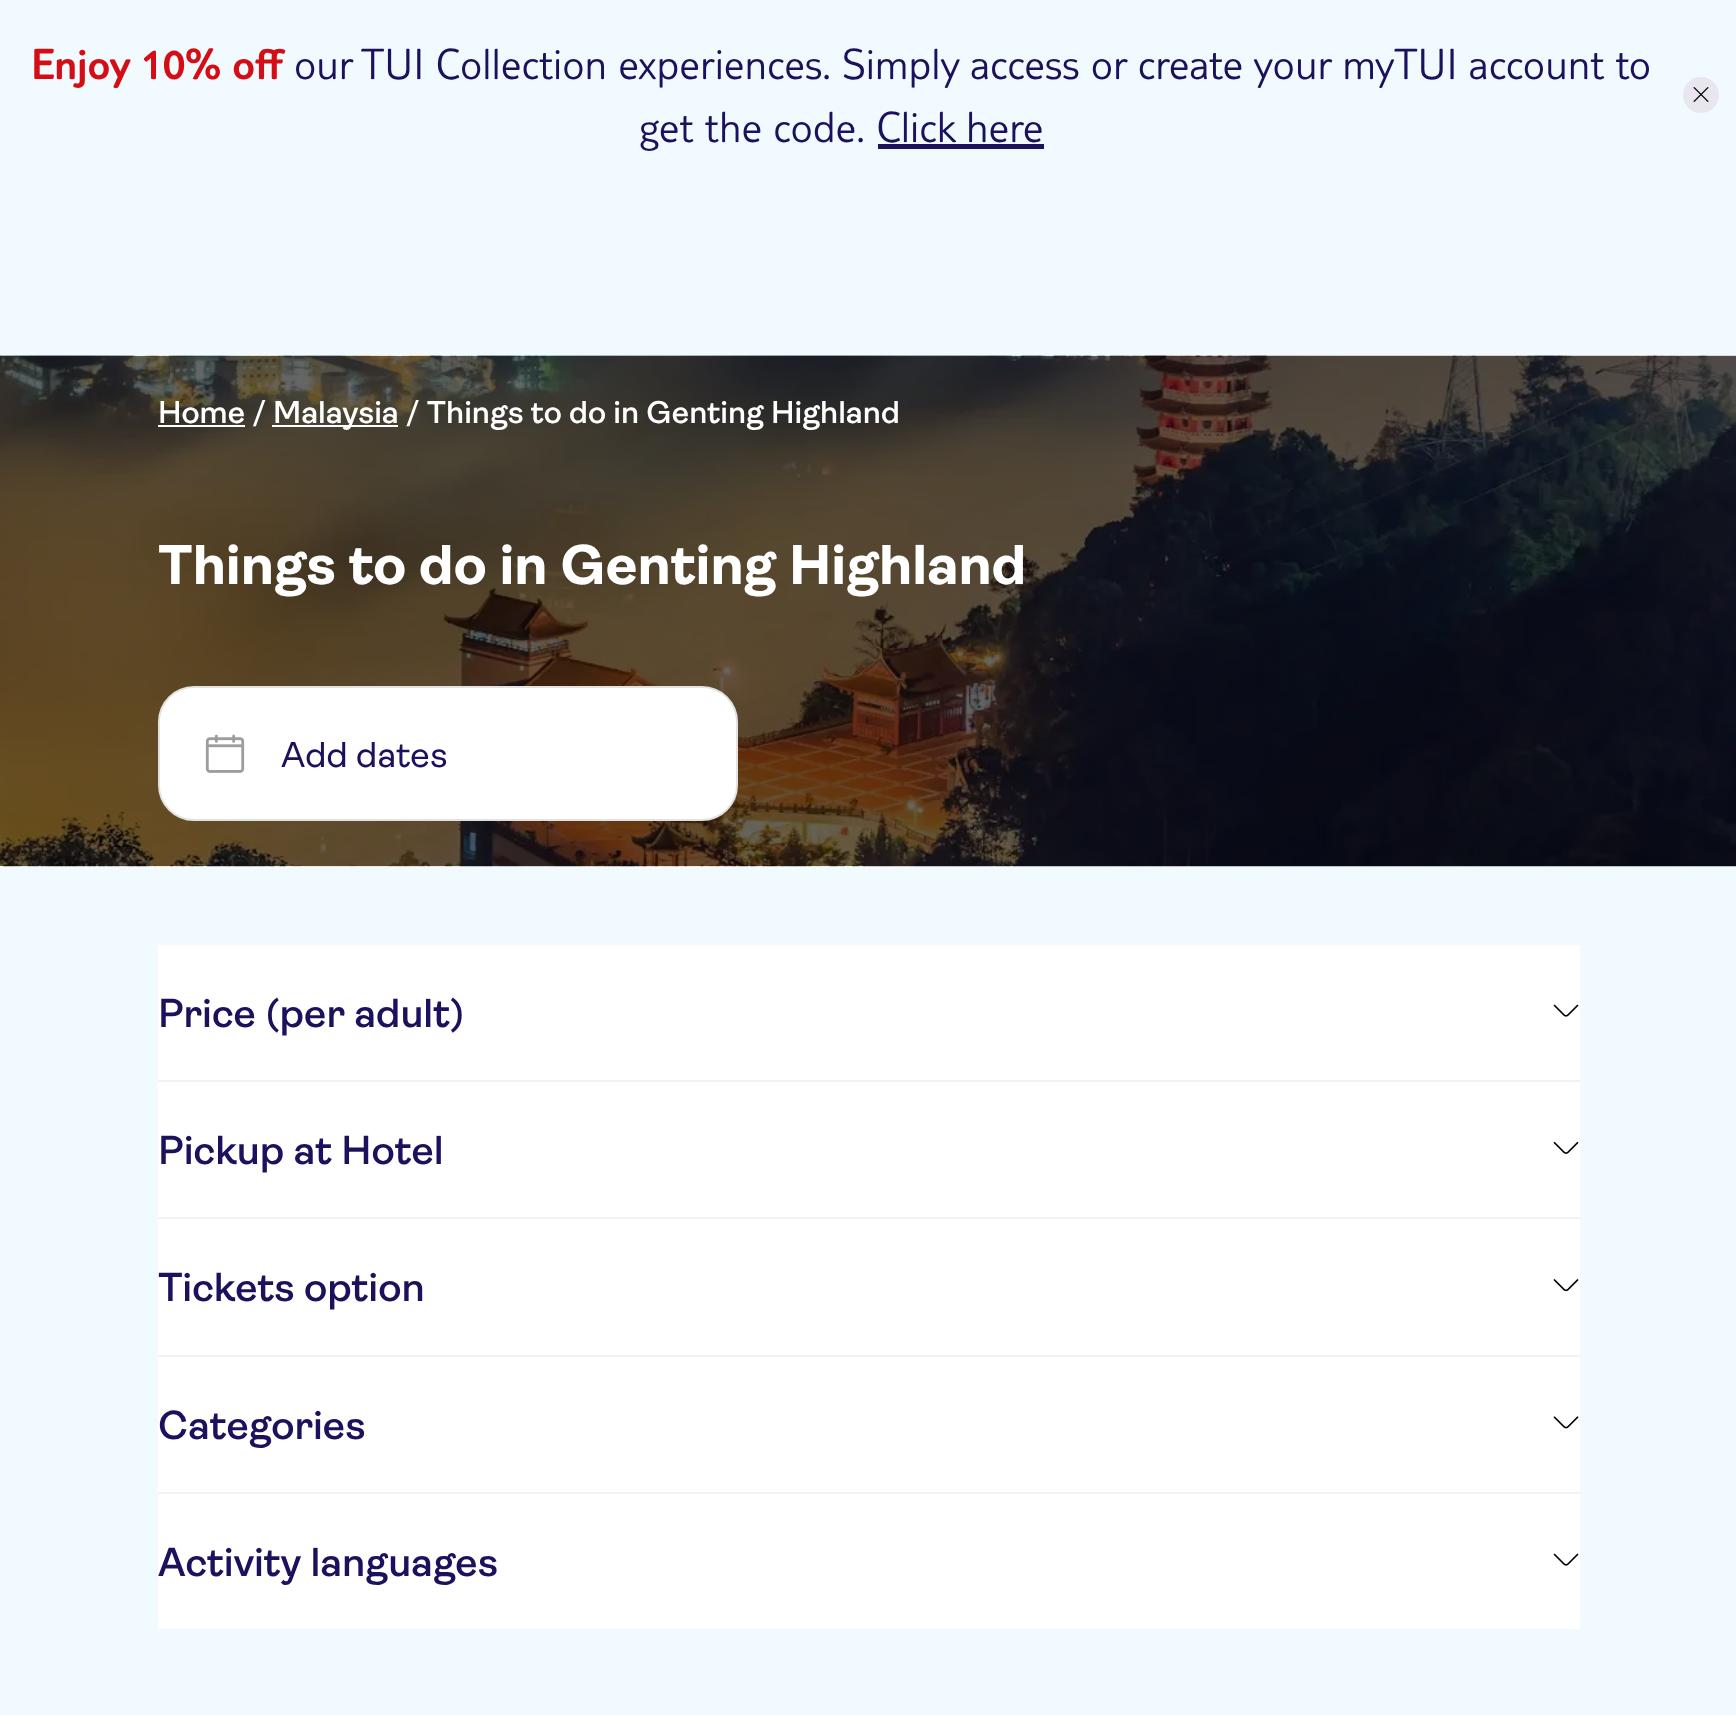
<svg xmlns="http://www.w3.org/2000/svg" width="1736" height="1715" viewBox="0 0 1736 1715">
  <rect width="100%" height="100%" fill="rgb(241,250,254)"/>
  <text x="31" y="79" font-family="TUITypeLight" font-size="45" font-weight="300" fill="rgb(212,14,20)">Enjoy 10% off</text>
  <g font-family="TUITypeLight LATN" font-size="45" font-weight="300" fill="rgb(27,17,92)">
    <text x="294" y="79">our TUI Collection experiences. Simply access or create your myTUI account to</text>
    <text x="639" y="142">get the code. Click here</text>
  </g>
  <rect x="878" y="144" width="166" height="5" fill="rgb(27,17,92)"/>
  <circle cx="1701" cy="95" r="18" fill="rgb(232,231,239)"/>
  <image x="1693" y="87" width="16" height="15" href="pic1.png"/>
  <image x="0" y="355" width="1736" height="512" href="pic2.png"/>
  <rect x="158" y="425" width="87" height="2" fill="rgb(255,255,255)"/>
  <text x="158" y="423" font-family="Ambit" font-size="31.5" font-weight="600" fill="rgb(255,255,255)">Home /</text>
  <rect x="272" y="425" width="126" height="2" fill="rgb(255,255,255)"/>
  <text x="273" y="423" font-family="Ambit" font-size="31.5" font-weight="600" fill="rgb(255,255,255)">Malaysia / Things to do in Genting Highland</text>
  <text x="158" y="584" font-family="Ambit" font-size="56.25" font-weight="bold" fill="rgb(255,255,255)">Things to do in Genting Highland</text>
  <rect x="159" y="687" width="578" height="133" rx="35" fill="rgb(255,255,255)" stroke="rgb(226,226,226)" stroke-width="2"/>
  <rect x="160" y="689" width="576" height="130" rx="36" fill="rgb(255,255,255)"/>
  <image x="205" y="734" width="40" height="39" href="pic3.png"/>
  <text x="281" y="767" font-family="Ambit" font-size="36" fill="rgb(27,17,92)">Add dates</text>
  <rect x="158" y="945" width="1422" height="684" fill="rgb(255,255,255)"/>
  <rect x="158" y="1080" width="1422" height="2" fill="rgb(242,242,242)"/>
  <text x="158" y="1027" font-family="Ambit" font-size="40.5" font-weight="600" fill="rgb(27,17,92)">Price (per adult)</text>
  <image x="1553" y="1004" width="26" height="13" href="pic4.png"/>
  <rect x="158" y="1217" width="1422" height="2" fill="rgb(242,242,242)"/>
  <text x="158" y="1164" font-family="Ambit" font-size="40.5" font-weight="600" fill="rgb(27,17,92)">Pickup at Hotel</text>
  <image x="1553" y="1141" width="26" height="13" href="pic5.png"/>
  <rect x="158" y="1355" width="1422" height="2" fill="rgb(242,242,242)"/>
  <text x="158" y="1301" font-family="Ambit" font-size="40.5" font-weight="600" fill="rgb(27,17,92)">Tickets option</text>
  <image x="1553" y="1279" width="26" height="13" href="pic6.png"/>
  <rect x="158" y="1492" width="1422" height="2" fill="rgb(242,242,242)"/>
  <text x="158" y="1439" font-family="Ambit" font-size="40.5" font-weight="600" fill="rgb(27,17,92)">Categories</text>
  <image x="1553" y="1416" width="26" height="13" href="pic7.png"/>
  <text x="158" y="1576" font-family="Ambit" font-size="40.5" font-weight="600" fill="rgb(27,17,92)">Activity languages</text>
  <image x="1553" y="1553" width="26" height="13" href="pic4.png"/>
</svg>
